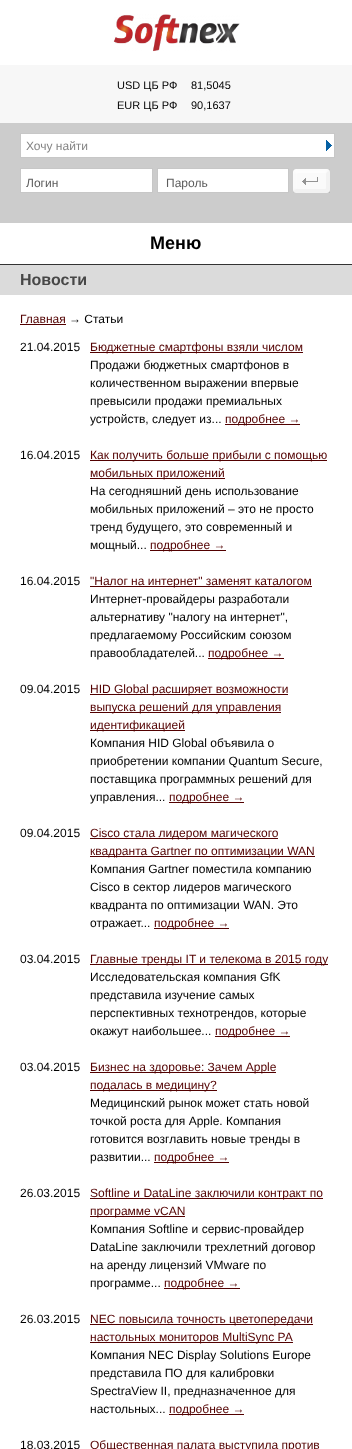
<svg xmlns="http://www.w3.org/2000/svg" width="352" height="1449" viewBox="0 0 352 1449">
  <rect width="100%" height="100%" fill="rgb(255,255,255)"/>
  <image x="113" y="14" width="127" height="38" href="pic1.png"/>
  <rect x="0" y="65" width="352" height="58" fill="rgb(247,247,247)"/>
  <g font-family="Liberation Sans" font-size="11" fill="rgb(0,0,0)">
    <text x="117" y="89">USD ЦБ РФ</text>
    <text x="191" y="89">81,5045</text>
    <text x="117" y="109">EUR ЦБ РФ</text>
    <text x="191" y="109">90,1637</text>
  </g>
  <rect x="0" y="123" width="352" height="100" fill="rgb(204,204,204)"/>
  <rect x="21" y="134" width="313" height="23" fill="rgb(255,255,255)"/>
  <image x="326" y="140" width="6" height="11" href="pic2.png"/>
  <rect x="20.5" y="133.5" width="314" height="24" fill="none" stroke="rgb(199,199,199)"/>
  <text x="26" y="150" font-family="Liberation Sans" font-size="12" fill="rgb(133,133,133)">Хочу найти</text>
  <rect x="20.5" y="168.5" width="132" height="24" fill="rgb(255,255,255)" stroke="rgb(199,199,199)"/>
  <rect x="157.5" y="168.5" width="131" height="24" fill="rgb(255,255,255)" stroke="rgb(199,199,199)"/>
  <image x="293" y="169" width="37" height="24" href="pic3.png"/>
  <g font-family="Liberation Sans" font-size="12" fill="rgb(92,92,92)">
    <text x="26" y="187">Логин</text>
    <text x="166" y="187">Пароль</text>
  </g>
  <text x="150" y="249" font-family="Liberation Sans" font-size="18" font-weight="bold" fill="rgb(0,0,0)">Меню</text>
  <rect x="0" y="264" width="352" height="1" fill="rgb(51,51,51)"/>
  <rect x="0" y="265" width="352" height="30" fill="rgb(219,219,219)"/>
  <text x="20" y="285" font-family="Liberation Sans" font-size="16" font-weight="bold" fill="rgb(71,71,71)">Новости</text>
  <text x="20" y="323" font-family="Liberation Sans" font-size="12" fill="rgb(82,0,0)">Главная</text>
  <rect x="20" y="324" width="46" height="1" fill="rgb(82,0,0)"/>
  <g font-family="Liberation Sans" font-size="12" fill="rgb(0,0,0)">
    <text x="69" y="323">→ Статьи</text>
    <text x="20" y="351">21.04.2015</text>
  </g>
  <rect x="90" y="352" width="213" height="1" fill="rgb(82,0,0)"/>
  <text x="90" y="351" font-family="Liberation Sans" font-size="12" fill="rgb(82,0,0)">Бюджетные смартфоны взяли числом</text>
  <g font-family="Liberation Sans" font-size="12" fill="rgb(0,0,0)">
    <text>
      <tspan x="90" y="369">Продажи бюджетных смартфонов в</tspan>
      <tspan x="90" y="387">количественном выражении впервые</tspan>
      <tspan x="90" y="405">превысили продажи премиальных</tspan>
      <tspan x="90" y="423">устройств, следует из...</tspan>
    </text>
  </g>
  <rect x="225" y="424" width="75" height="1" fill="rgb(82,0,0)"/>
  <text x="225" y="423" font-family="Liberation Sans" font-size="12" fill="rgb(82,0,0)">подробнее →</text>
  <text x="20" y="459" font-family="Liberation Sans" font-size="12" fill="rgb(0,0,0)">16.04.2015</text>
  <rect x="90" y="460" width="237" height="1" fill="rgb(82,0,0)"/>
  <text x="90" y="459" font-family="Liberation Sans" font-size="12" fill="rgb(82,0,0)">Как получить больше прибыли с помощью</text>
  <rect x="90" y="478" width="135" height="1" fill="rgb(82,0,0)"/>
  <text x="90" y="477" font-family="Liberation Sans" font-size="12" fill="rgb(82,0,0)">мобильных приложений</text>
  <g font-family="Liberation Sans" font-size="12" fill="rgb(0,0,0)">
    <text>
      <tspan x="90" y="495">На сегодняшний день использование</tspan>
      <tspan x="90" y="513">мобильных приложений – это не просто</tspan>
      <tspan x="90" y="531">тренд будущего, это современный и</tspan>
      <tspan x="90" y="549">мощный...</tspan>
    </text>
  </g>
  <rect x="150" y="550" width="76" height="1" fill="rgb(82,0,0)"/>
  <text x="150" y="549" font-family="Liberation Sans" font-size="12" fill="rgb(82,0,0)">подробнее →</text>
  <text x="20" y="585" font-family="Liberation Sans" font-size="12" fill="rgb(0,0,0)">16.04.2015</text>
  <rect x="90" y="586" width="222" height="1" fill="rgb(82,0,0)"/>
  <text x="90" y="585" font-family="Liberation Sans" font-size="12" fill="rgb(82,0,0)">"Налог на интернет" заменят каталогом</text>
  <g font-family="Liberation Sans" font-size="12" fill="rgb(0,0,0)">
    <text>
      <tspan x="90" y="603">Интернет-провайдеры разработали</tspan>
      <tspan x="90" y="621">альтернативу "налогу на интернет",</tspan>
      <tspan x="90" y="639">предлагаемому Российским союзом</tspan>
      <tspan x="90" y="657">правообладателей...</tspan>
    </text>
  </g>
  <rect x="208" y="658" width="76" height="1" fill="rgb(82,0,0)"/>
  <text x="208" y="657" font-family="Liberation Sans" font-size="12" fill="rgb(82,0,0)">подробнее →</text>
  <text x="20" y="693" font-family="Liberation Sans" font-size="12" fill="rgb(0,0,0)">09.04.2015</text>
  <rect x="90" y="694" width="198" height="1" fill="rgb(82,0,0)"/>
  <text x="90" y="693" font-family="Liberation Sans" font-size="12" fill="rgb(82,0,0)">HID Global расширяет возможности</text>
  <rect x="90" y="712" width="191" height="1" fill="rgb(82,0,0)"/>
  <text x="90" y="711" font-family="Liberation Sans" font-size="12" fill="rgb(82,0,0)">выпуска решений для управления</text>
  <rect x="90" y="730" width="95" height="1" fill="rgb(82,0,0)"/>
  <text x="90" y="729" font-family="Liberation Sans" font-size="12" fill="rgb(82,0,0)">идентификацией</text>
  <g font-family="Liberation Sans" font-size="12" fill="rgb(0,0,0)">
    <text>
      <tspan x="90" y="747">Компания HID Global объявила о</tspan>
      <tspan x="90" y="765">приобретении компании Quantum Secure,</tspan>
      <tspan x="90" y="783">поставщика программных решений для</tspan>
      <tspan x="90" y="801">управления...</tspan>
    </text>
  </g>
  <rect x="169" y="802" width="75" height="1" fill="rgb(82,0,0)"/>
  <text x="169" y="801" font-family="Liberation Sans" font-size="12" fill="rgb(82,0,0)">подробнее →</text>
  <text x="20" y="837" font-family="Liberation Sans" font-size="12" fill="rgb(0,0,0)">09.04.2015</text>
  <rect x="90" y="838" width="188" height="1" fill="rgb(82,0,0)"/>
  <text x="90" y="837" font-family="Liberation Sans" font-size="12" fill="rgb(82,0,0)">Cisco стала лидером магического</text>
  <rect x="90" y="856" width="225" height="1" fill="rgb(82,0,0)"/>
  <text x="90" y="855" font-family="Liberation Sans" font-size="12" fill="rgb(82,0,0)">квадранта Gartner по оптимизации WAN</text>
  <g font-family="Liberation Sans" font-size="12" fill="rgb(0,0,0)">
    <text>
      <tspan x="90" y="873">Компания Gartner поместила компанию</tspan>
      <tspan x="90" y="891">Cisco в сектор лидеров магического</tspan>
      <tspan x="90" y="909">квадранта по оптимизации WAN. Это</tspan>
      <tspan x="90" y="927">отражает...</tspan>
    </text>
  </g>
  <rect x="154" y="928" width="75" height="1" fill="rgb(82,0,0)"/>
  <text x="154" y="927" font-family="Liberation Sans" font-size="12" fill="rgb(82,0,0)">подробнее →</text>
  <text x="20" y="963" font-family="Liberation Sans" font-size="12" fill="rgb(0,0,0)">03.04.2015</text>
  <rect x="90" y="964" width="238" height="1" fill="rgb(82,0,0)"/>
  <text x="90" y="963" font-family="Liberation Sans" font-size="12" fill="rgb(82,0,0)">Главные тренды IT и телекома в 2015 году</text>
  <g font-family="Liberation Sans" font-size="12" fill="rgb(0,0,0)">
    <text>
      <tspan x="90" y="981">Исследовательская компания GfK</tspan>
      <tspan x="90" y="999">представила изучение самых</tspan>
      <tspan x="90" y="1017">перспективных технотрендов, которые</tspan>
      <tspan x="90" y="1035">окажут наибольшее...</tspan>
    </text>
  </g>
  <rect x="215" y="1036" width="75" height="1" fill="rgb(82,0,0)"/>
  <text x="215" y="1035" font-family="Liberation Sans" font-size="12" fill="rgb(82,0,0)">подробнее →</text>
  <text x="20" y="1071" font-family="Liberation Sans" font-size="12" fill="rgb(0,0,0)">03.04.2015</text>
  <rect x="90" y="1072" width="186" height="1" fill="rgb(82,0,0)"/>
  <text x="90" y="1071" font-family="Liberation Sans" font-size="12" fill="rgb(82,0,0)">Бизнес на здоровье: Зачем Apple</text>
  <rect x="90" y="1090" width="127" height="1" fill="rgb(82,0,0)"/>
  <text x="90" y="1089" font-family="Liberation Sans" font-size="12" fill="rgb(82,0,0)">подалась в медицину?</text>
  <g font-family="Liberation Sans" font-size="12" fill="rgb(0,0,0)">
    <text>
      <tspan x="90" y="1107">Медицинский рынок может стать новой</tspan>
      <tspan x="90" y="1125">точкой роста для Apple. Компания</tspan>
      <tspan x="90" y="1143">готовится возглавить новые тренды в</tspan>
      <tspan x="90" y="1161">развитии...</tspan>
    </text>
  </g>
  <rect x="154" y="1162" width="75" height="1" fill="rgb(82,0,0)"/>
  <text x="154" y="1161" font-family="Liberation Sans" font-size="12" fill="rgb(82,0,0)">подробнее →</text>
  <text x="20" y="1197" font-family="Liberation Sans" font-size="12" fill="rgb(0,0,0)">26.03.2015</text>
  <rect x="90" y="1198" width="233" height="1" fill="rgb(82,0,0)"/>
  <text x="90" y="1197" font-family="Liberation Sans" font-size="12" fill="rgb(82,0,0)">Softline и DataLine заключили контракт по</text>
  <rect x="90" y="1216" width="95" height="1" fill="rgb(82,0,0)"/>
  <text x="90" y="1215" font-family="Liberation Sans" font-size="12" fill="rgb(82,0,0)">программе vCAN</text>
  <g font-family="Liberation Sans" font-size="12" fill="rgb(0,0,0)">
    <text>
      <tspan x="90" y="1233">Компания Softline и сервис-провайдер</tspan>
      <tspan x="90" y="1251">DataLine заключили трехлетний договор</tspan>
      <tspan x="90" y="1269">на аренду лицензий VMware по</tspan>
      <tspan x="90" y="1287">программе...</tspan>
    </text>
  </g>
  <rect x="164" y="1288" width="76" height="1" fill="rgb(82,0,0)"/>
  <text x="164" y="1287" font-family="Liberation Sans" font-size="12" fill="rgb(82,0,0)">подробнее →</text>
  <text x="20" y="1323" font-family="Liberation Sans" font-size="12" fill="rgb(0,0,0)">26.03.2015</text>
  <rect x="90" y="1324" width="223" height="1" fill="rgb(82,0,0)"/>
  <text x="90" y="1323" font-family="Liberation Sans" font-size="12" fill="rgb(82,0,0)">NEC повысила точность цветопередачи</text>
  <rect x="90" y="1342" width="203" height="1" fill="rgb(82,0,0)"/>
  <text x="90" y="1341" font-family="Liberation Sans" font-size="12" fill="rgb(82,0,0)">настольных мониторов MultiSync PA</text>
  <g font-family="Liberation Sans" font-size="12" fill="rgb(0,0,0)">
    <text>
      <tspan x="90" y="1359">Компания NEC Display Solutions Europe</tspan>
      <tspan x="90" y="1377">представила ПО для калибровки</tspan>
      <tspan x="90" y="1395">SpectraView II, предназначенное для</tspan>
      <tspan x="90" y="1413">настольных...</tspan>
    </text>
  </g>
  <rect x="169" y="1414" width="75" height="1" fill="rgb(82,0,0)"/>
  <text x="169" y="1413" font-family="Liberation Sans" font-size="12" fill="rgb(82,0,0)">подробнее →</text>
  <text x="20" y="1449" font-family="Liberation Sans" font-size="12" fill="rgb(0,0,0)">18.03.2015</text>
  <text x="90" y="1449" font-family="Liberation Sans" font-size="12" fill="rgb(82,0,0)">Общественная палата выступила против</text>
</svg>
